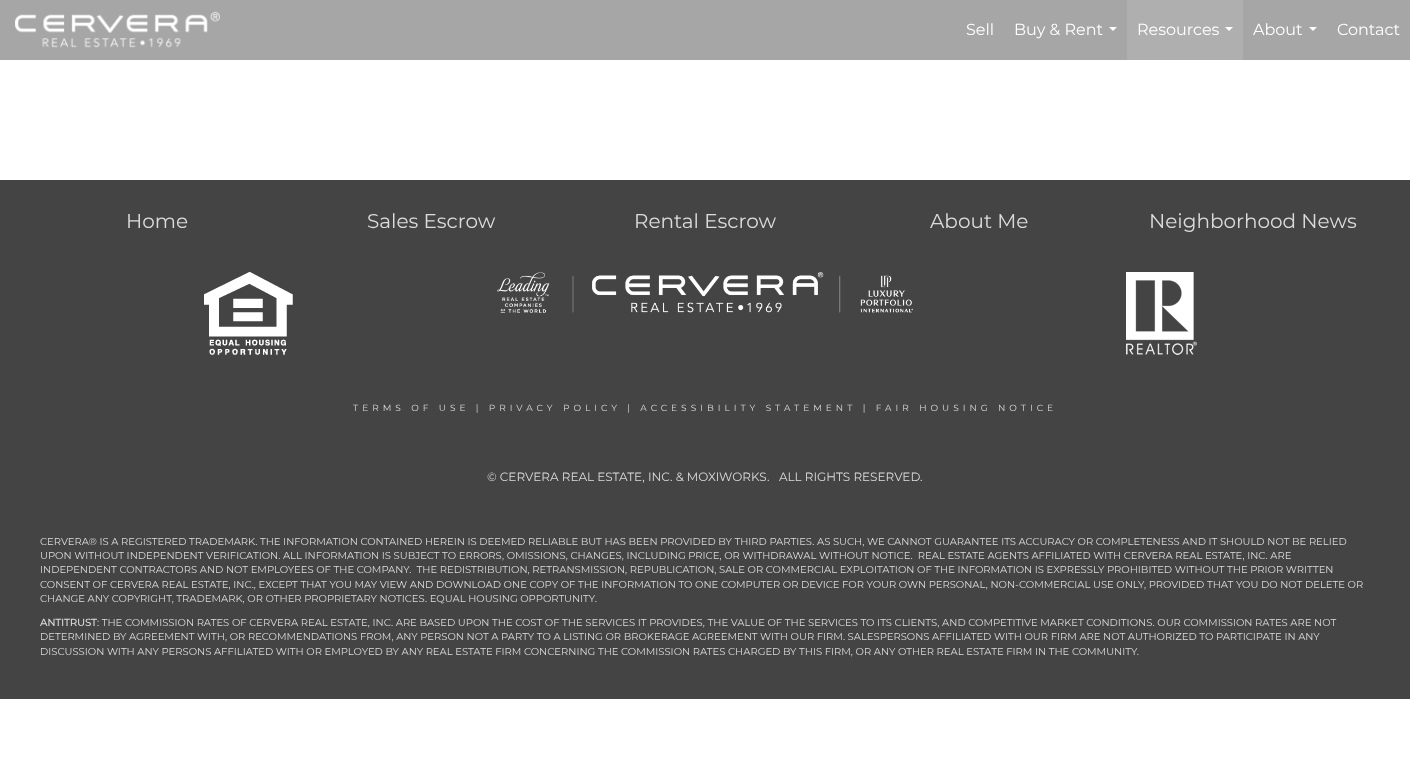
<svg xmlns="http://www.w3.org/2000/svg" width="1410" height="759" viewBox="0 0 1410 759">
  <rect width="100%" height="100%" fill="rgb(255,255,255)"/>
  <rect x="0" y="0" width="1410" height="60" fill="rgb(166,166,166)"/>
  <image x="15" y="11" width="205" height="37" href="pic1.png"/>
  <g font-family="Montserrat" font-size="16" font-weight="100" fill="rgb(255,255,255)">
    <text x="966" y="35">Sell</text>
    <text x="1014" y="35">Buy &amp; Rent</text>
  </g>
  <path d="M1109 27H1117L1113 31Z" fill="rgb(255,255,255)"/>
  <rect x="1127" y="0" width="116" height="60" fill="rgb(175,175,175)"/>
  <text x="1137" y="35" font-family="Montserrat" font-size="16" font-weight="100" fill="rgb(255,255,255)">Resources</text>
  <path d="M1225 27H1233L1229 31Z" fill="rgb(255,255,255)"/>
  <text x="1253" y="35" font-family="Montserrat" font-size="16" font-weight="100" fill="rgb(255,255,255)">About</text>
  <path d="M1309 27H1317L1313 31Z" fill="rgb(255,255,255)"/>
  <text x="1337" y="35" font-family="Montserrat" font-size="16" font-weight="100" fill="rgb(255,255,255)">Contact</text>
  <rect x="0" y="180" width="1410" height="519" fill="rgb(68,68,68)"/>
  <g font-family="Montserrat" font-size="20" font-weight="100" fill="rgb(219,219,219)">
    <text x="126" y="228">Home</text>
    <text x="367" y="228">Sales Escrow</text>
    <text x="634" y="228">Rental Escrow</text>
    <text x="930" y="228">About Me</text>
    <text x="1149" y="228">Neighborhood News</text>
  </g>
  <image x="204" y="272" width="89" height="83" href="pic2.png"/>
  <image x="497" y="272" width="416" height="41" href="pic3.png"/>
  <image x="1126" y="272" width="71" height="83" href="pic4.png"/>
  <text x="353" y="411" font-family="Montserrat" font-size="9" font-weight="100" letter-spacing="4" fill="rgb(219,219,219)">TERMS OF USE | PRIVACY POLICY | ACCESSIBILITY STATEMENT | FAIR HOUSING NOTICE</text>
  <text x="487" y="481" font-family="Montserrat" font-size="12" font-weight="100" fill="rgb(219,219,219)" xml:space="preserve">© CERVERA REAL ESTATE, INC. &amp; MOXIWORKS.   ALL RIGHTS RESERVED.</text>
  <g font-family="Montserrat" font-size="10" font-weight="100" fill="rgb(219,219,219)">
    <text xml:space="preserve"><tspan x="40" y="545">CERVERA® IS A REGISTERED TRADEMARK. THE INFORMATION CONTAINED HEREIN IS DEEMED RELIABLE BUT HAS BEEN PROVIDED BY THIRD PARTIES. AS SUCH, WE CANNOT GUARANTEE ITS ACCURACY OR COMPLETENESS AND IT SHOULD NOT BE RELIED</tspan><tspan x="40" y="559">UPON WITHOUT INDEPENDENT VERIFICATION. ALL INFORMATION IS SUBJECT TO ERRORS, OMISSIONS, CHANGES, INCLUDING PRICE, OR WITHDRAWAL WITHOUT NOTICE.  REAL ESTATE AGENTS AFFILIATED WITH CERVERA REAL ESTATE, INC. ARE</tspan><tspan x="40" y="573">INDEPENDENT CONTRACTORS AND NOT EMPLOYEES OF THE COMPANY.  THE REDISTRIBUTION, RETRANSMISSION, REPUBLICATION, SALE OR COMMERCIAL EXPLOITATION OF THE INFORMATION IS EXPRESSLY PROHIBITED WITHOUT THE PRIOR WRITTEN</tspan><tspan x="40" y="588">CONSENT OF CERVERA REAL ESTATE, INC., EXCEPT THAT YOU MAY VIEW AND DOWNLOAD ONE COPY OF THE INFORMATION TO ONE COMPUTER OR DEVICE FOR YOUR OWN PERSONAL, NON-COMMERCIAL USE ONLY, PROVIDED THAT YOU DO NOT DELETE OR</tspan><tspan x="40" y="602">CHANGE ANY COPYRIGHT, TRADEMARK, OR OTHER PROPRIETARY NOTICES. EQUAL HOUSING OPPORTUNITY.</tspan></text>
  </g>
  <text x="40" y="626" font-family="Montserrat" font-size="10" font-weight="bold" fill="rgb(219,219,219)">ANTITRUST</text>
  <g font-family="Montserrat" font-size="10" font-weight="100" fill="rgb(219,219,219)">
    <text x="97" y="626">: THE COMMISSION RATES OF CERVERA REAL ESTATE, INC. ARE BASED UPON THE COST OF THE SERVICES IT PROVIDES, THE VALUE OF THE SERVICES TO ITS CLIENTS, AND COMPETITIVE MARKET CONDITIONS. OUR COMMISSION RATES ARE NOT</text>
    <text>
      <tspan x="40" y="640">DETERMINED BY AGREEMENT WITH, OR RECOMMENDATIONS FROM, ANY PERSON NOT A PARTY TO A LISTING OR BROKERAGE AGREEMENT WITH OUR FIRM. SALESPERSONS AFFILIATED WITH OUR FIRM ARE NOT AUTHORIZED TO PARTICIPATE IN ANY</tspan>
      <tspan x="40" y="655">DISCUSSION WITH ANY PERSONS AFFILIATED WITH OR EMPLOYED BY ANY REAL ESTATE FIRM CONCERNING THE COMMISSION RATES CHARGED BY THIS FIRM, OR ANY OTHER REAL ESTATE FIRM IN THE COMMUNITY.</tspan>
    </text>
  </g>
</svg>
